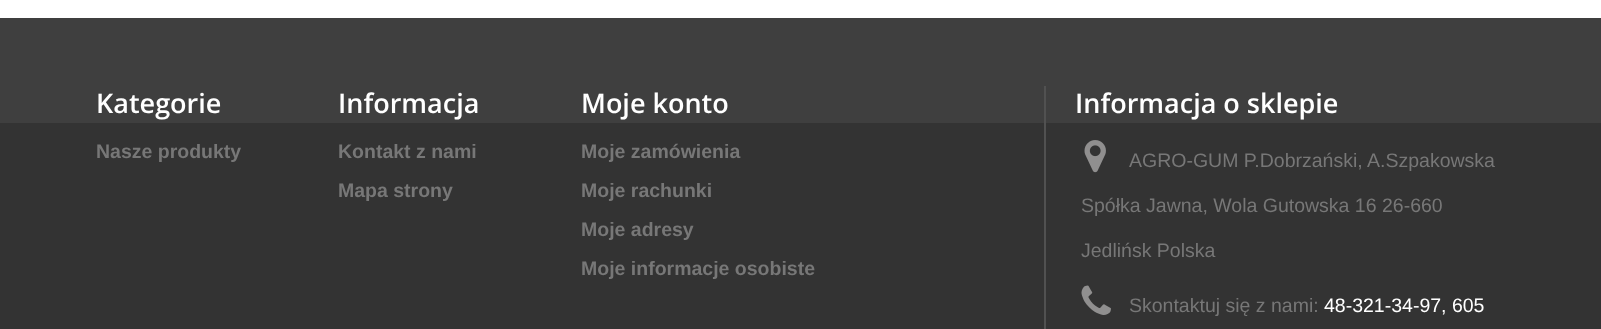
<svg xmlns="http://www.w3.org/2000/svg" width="1601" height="329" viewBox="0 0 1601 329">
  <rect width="100%" height="100%" fill="rgb(255,255,255)"/>
  <rect x="0" y="123" width="1601" height="206" fill="rgb(51,51,51)"/>
  <rect x="0" y="18" width="1601" height="105" fill="rgb(63,63,63)"/>
  <text x="96" y="113" font-family="Open Sans" font-size="27" font-weight="600" fill="rgb(255,255,255)">Kategorie</text>
  <text x="96" y="158" font-family="Liberation Sans" font-size="19.5" font-weight="bold" fill="rgb(119,119,119)">Nasze produkty</text>
  <text x="338" y="113" font-family="Open Sans" font-size="27" font-weight="600" fill="rgb(255,255,255)">Informacja</text>
  <g font-family="Liberation Sans" font-size="19.5" font-weight="bold" fill="rgb(119,119,119)">
    <text x="338" y="158">Kontakt z nami</text>
    <text x="338" y="197">Mapa strony</text>
  </g>
  <text x="581" y="113" font-family="Open Sans" font-size="27" font-weight="600" fill="rgb(255,255,255)">Moje konto</text>
  <g font-family="Liberation Sans" font-size="19.5" font-weight="bold" fill="rgb(119,119,119)">
    <text x="581" y="158">Moje zamówienia</text>
    <text x="581" y="197">Moje rachunki</text>
    <text x="581" y="236">Moje adresy</text>
    <text x="581" y="275">Moje informacje osobiste</text>
  </g>
  <rect x="1044" y="86" width="2" height="243" fill="rgb(81,81,81)"/>
  <text x="1075" y="113" font-family="Open Sans" font-size="27" font-weight="600" fill="rgb(255,255,255)">Informacja o sklepie</text>
  <image x="1084" y="140" width="22" height="33" href="pic1.png"/>
  <g font-family="Liberation Sans" font-size="19.5" fill="rgb(119,119,119)">
    <text x="1129" y="167">AGRO-GUM P.Dobrzański, A.Szpakowska</text>
    <text x="1081" y="212">Spółka Jawna, Wola Gutowska 16 26-660</text>
    <text x="1081" y="257">Jedlińsk Polska</text>
  </g>
  <image x="1081" y="285" width="30" height="30" href="pic2.png"/>
  <text x="1129" y="312" font-family="Liberation Sans" font-size="19.5" fill="rgb(119,119,119)">Skontaktuj się z nami:</text>
  <text x="1324" y="312" font-family="Liberation Sans" font-size="19.5" fill="rgb(255,255,255)">48-321-34-97, 605</text>
</svg>
